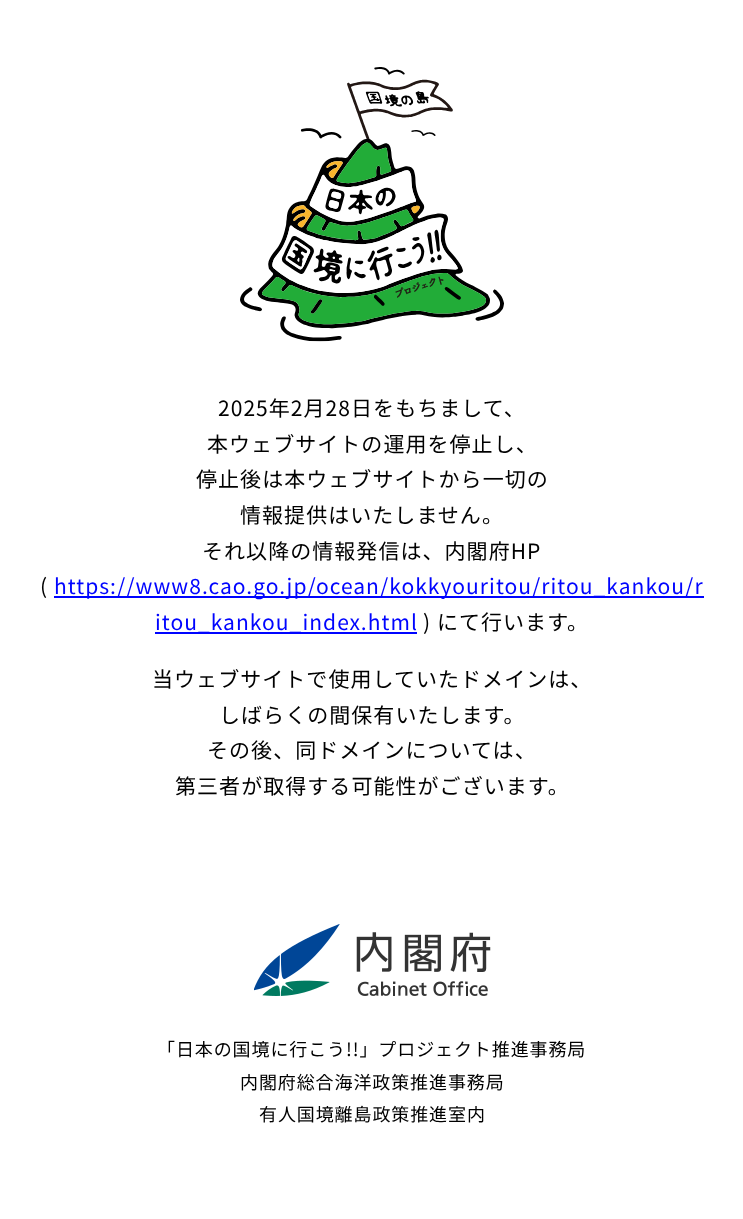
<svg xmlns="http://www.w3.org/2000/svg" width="743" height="1219">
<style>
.a{font:21px Noto Sans JP;letter-spacing:1.05px;fill:#000}
.b{font:21px Noto Sans JP;letter-spacing:1.05px;fill:#0004ff}
.c{font:18px Noto Sans JP;letter-spacing:0.9px;fill:#000}
</style>
<rect width="100%" height="100%" fill="#fff"/>
<image href="1.png" x="240" y="67" width="264" height="275"/>
<path fill="#0004ff" d="M54 596h650v2H54z"/>
<path fill="#0004ff" d="M155 632h262v2H155z"/>
<image href="2.png" x="254" y="924" width="237" height="72"/>
<text class="a" x="218" y="416">2025年2月28日をもちまして、</text>
<text class="a" x="207" y="452">本ウェブサイトの運用を停止し、</text>
<text class="a" x="196" y="487">停止後は本ウェブサイトから一切の</text>
<text class="a" x="240" y="523">情報提供はいたしません。</text>
<text class="a" x="202" y="559">それ以降の情報発信は、内閣府HP</text>
<text class="a" x="40" y="594">(</text>
<text class="b" x="54" y="594">https://www8.cao.go.jp/ocean/kokkyouritou/ritou_kankou/r</text>
<text class="b" x="155" y="630">itou_kankou_index.html</text>
<text class="a" x="423" y="630">) にて行います。</text>
<text class="a" x="152" y="687">当ウェブサイトで使用していたドメインは、</text>
<text class="a" x="219" y="723">しばらくの間保有いたします。</text>
<text class="a" x="207" y="758">その後、同ドメインについては、</text>
<text class="a" x="175" y="794">第三者が取得する可能性がございます。</text>
<text class="c" x="157" y="1056">「日本の国境に行こう!!」プロジェクト推進事務局</text>
<text class="c" x="240" y="1089">内閣府総合海洋政策推進事務局</text>
<text class="c" x="259" y="1121">有人国境離島政策推進室内</text>
</svg>
